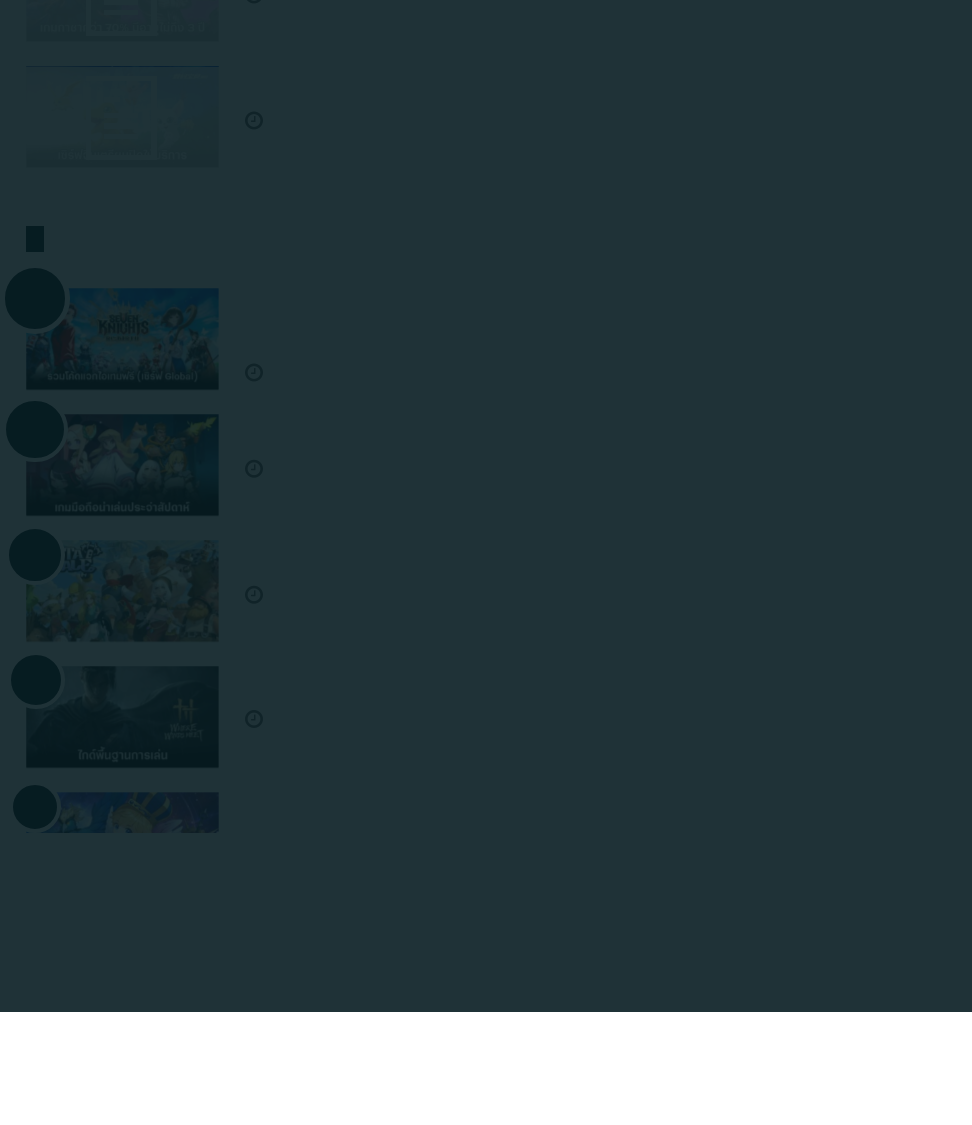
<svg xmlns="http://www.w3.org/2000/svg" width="972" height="1125">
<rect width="100%" height="100%" fill="#fff"/>
<image href="1.png" x="26" y="0" width="193" height="42"/>
<path fill="#fff" d="M104-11h34v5h-34zm0 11h34v5h-34zm0 10h34v5h-34zm0-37h16v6h-16zm53 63h-71v-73h5v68h60v-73h-65v-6h71z"/>
<image href="2.png" x="247" y="0" width="14" height="4"/>
<image href="3.png" x="26" y="66" width="193" height="102"/>
<path fill="#fff" d="M104 113h34v5h-34zm0 10h34v6h-34zm0 11h34v5h-34zm0-37h16v5h-16zm53 63h-71v-73h5v68h60v-74h-65v-5h71z"/>
<image href="4.png" x="245" y="111" width="18" height="19"/>
<path fill="#091e23" d="M26 226h18v26H26z"/>
<image href="5.png" x="26" y="288" width="193" height="103"/>
<rect fill="#091e23" stroke="#fff" stroke-width="5" x="2.5" y="265.5" width="65" height="66" rx="32.5"/>
<image href="4.png" x="245" y="363" width="18" height="19"/>
<image href="6.png" x="26" y="414" width="193" height="103"/>
<rect fill="#091e23" stroke="#fff" stroke-width="4" x="4" y="399" width="62" height="61" rx="30.5"/>
<image href="7.png" x="245" y="459" width="18" height="19"/>
<image href="8.png" x="26" y="540" width="193" height="103"/>
<circle fill="#091e23" stroke="#fff" stroke-width="4" cx="35" cy="555" r="28"/>
<image href="7.png" x="245" y="585" width="18" height="19"/>
<image href="9.png" x="26" y="666" width="193" height="103"/>
<circle fill="#091e23" stroke="#fff" stroke-width="4" cx="36" cy="680" r="27"/>
<image href="10.png" x="245" y="710" width="18" height="18"/>
<image href="11.png" x="26" y="792" width="193" height="41"/>
<circle fill="#091e23" stroke="#fff" stroke-width="4" cx="35" cy="807" r="24"/>
<path fill="#071c21e6" d="M0 0h972v1012H0z"/>
</svg>
